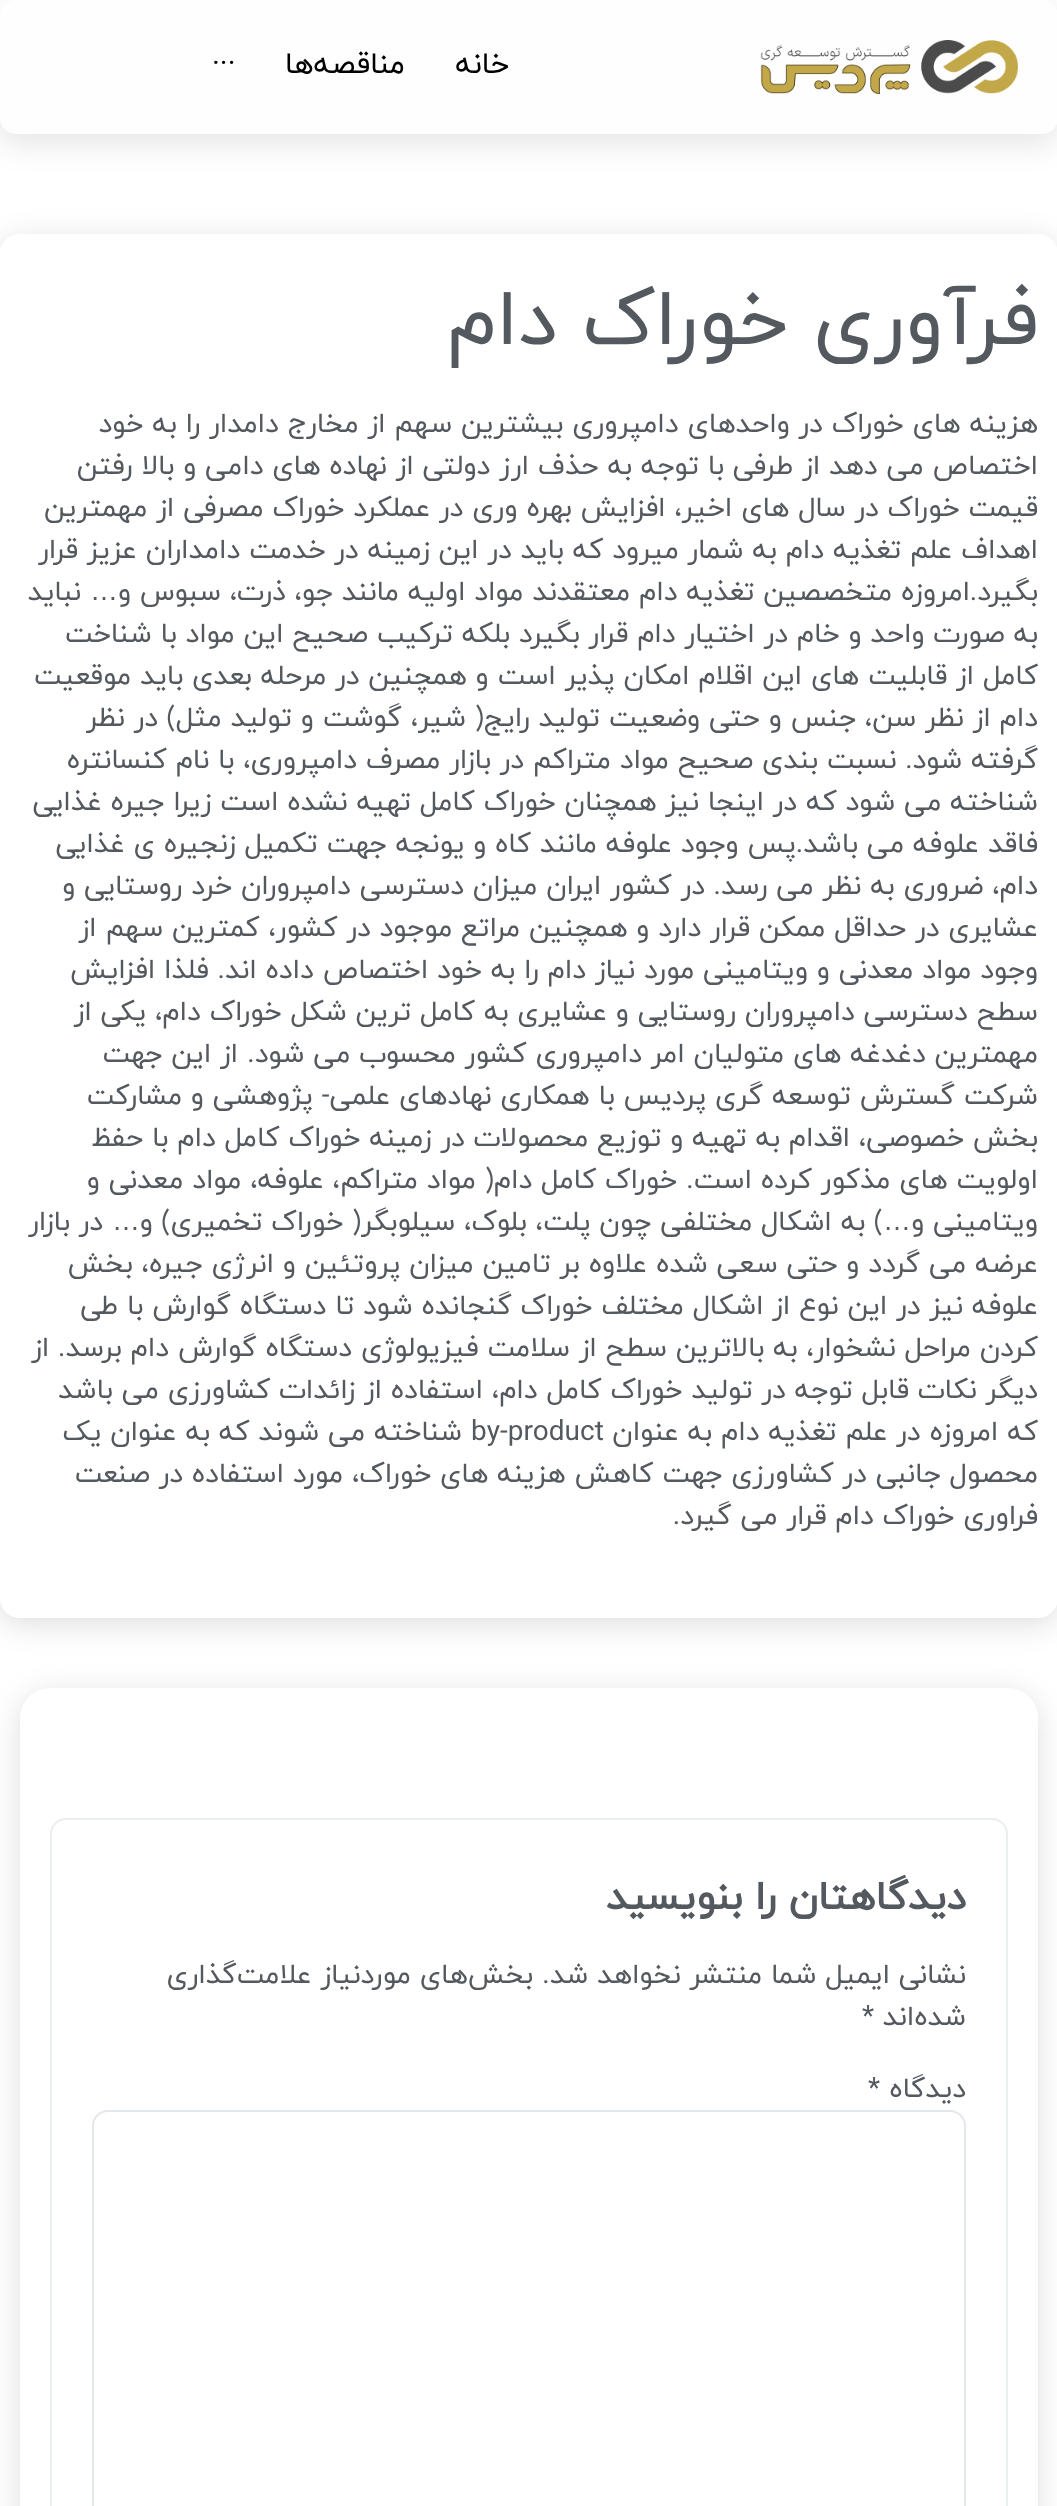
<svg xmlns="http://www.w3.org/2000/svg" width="1057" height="2506">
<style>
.a{font:30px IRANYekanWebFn;direction:rtl;fill:#000}
.b{font:30px IRANYekanWebFn;fill:#000}
.c{font:80px IRANYekanWebFn;direction:rtl;fill:#54595f}
.d{font:28px IRANYekanWebFn;direction:rtl;fill:#54595f}
.e{font:28px Liberation Sans;direction:rtl;fill:#54595f}
.f{font:28px IRANYekanWebFn;fill:#54595f}
.g{font:bold 40px IRANYekanWebFn;direction:rtl;fill:#54595f}
</style>
<defs>
<clipPath id="clip1"><path d="M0 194h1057v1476h-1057zm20 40h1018c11 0 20 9 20 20v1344c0 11-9 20-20 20h-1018c-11 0-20-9-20-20v-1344c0-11 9-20 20-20z" clip-rule="evenodd"/></clipPath>
</defs>
<rect width="100%" height="100%" fill="#fff"/>
<rect fill="#0000001a" filter="blur(15px)" y="10" width="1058" height="134" rx="16"/>
<rect fill="#fffefe" width="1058" height="134" rx="16"/>
<image href="1.png" x="760" y="40" width="258" height="54"/>
<g clip-path="url(#clip1)">
<rect fill="#00000021" filter="blur(15px)" y="240" width="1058" height="1384" rx="20"/>
</g>
<rect fill="#00000021" filter="blur(15px)" x="20" y="1694" width="1018" height="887" rx="30"/>
<rect fill="#fff" x="20" y="1688" width="1018" height="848" rx="30"/>
<rect fill="none" stroke="#ebeeef" stroke-width="2" x="51" y="1819" width="956" height="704" rx="15"/>
<rect fill="none" stroke="#e3e6ec" stroke-width="2" x="93" y="2111" width="872" height="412" rx="15"/>
<text class="a" x="509" y="73">خانه</text>
<text class="a" x="405" y="73">مناقصه‌ها</text>
<text class="b" x="212" y="73">···</text>
<text class="c" x="1038" y="344">فرآوری خوراک دام</text>
<text class="d" x="1038" y="432">هزینه های خوراک در واحد‌های دامپروری بیشترین سهم از مخارج دامدار را به خود</text>
<text class="d" x="1038" y="474">اختصاص می دهد از طرفی با توجه به حذف ارز دولتی از نهاده های دامی و بالا رفتن</text>
<text class="d" x="1038" y="516">قیمت خوراک در سال های اخیر، افزایش بهره وری در عملکرد خوراک مصرفی از مهمترین</text>
<text class="d" x="1038" y="558">اهداف علم تغذیه دام به شمار میرود که باید در این زمینه در خدمت دامداران عزیز قرار</text>
<text class="d" x="1038" y="600">بگیرد.</text>
<text class="d" x="970" y="600">امروزه متخصصین تغذیه دام معتقدند مواد اولیه مانند جو، ذرت، سبوس و</text>
<text class="e" x="118" y="600">…</text>
<text class="d" x="81" y="600">نباید</text>
<text class="d" x="1038" y="642">به صورت واحد و خام در اختیار دام قرار بگیرد بلکه ترکیب صحیح این مواد با شناخت</text>
<text class="d" x="1038" y="684">کامل از قابلیت های این اقلام امکان پذیر است و همچنین در مرحله بعدی باید موقعیت</text>
<text class="d" x="1038" y="726">دام از نظر سن، جنس و حتی وضعیت تولید رایج( شیر، گوشت و تولید مثل) در نظر</text>
<text class="d" x="1038" y="768">گرفته شود. نسبت بندی صحیح مواد متراکم در بازار مصرف دامپروری، با نام کنسانتره</text>
<text class="d" x="1038" y="810">شناخته می شود که در اینجا نیز همچنان خوراک کامل تهیه نشده است زیرا جیره غذایی</text>
<text class="d" x="1038" y="852">فاقد علوفه می باشد.پس وجود علوفه مانند کاه و یونجه جهت تکمیل زنجیره ی غذایی</text>
<text class="d" x="1038" y="894">دام، ضروری به نظر می رسد.</text>
<text class="d" x="705" y="894">در کشور ایران میزان دسترسی دامپروران خرد روستایی و</text>
<text class="d" x="1038" y="936">عشایری در حداقل ممکن قرار دارد و همچنین مراتع موجود در کشور، کمترین سهم از</text>
<text class="d" x="1038" y="978">وجود مواد معدنی و ویتامینی مورد نیاز دام را به خود اختصاص داده اند. فلذا افزایش</text>
<text class="d" x="1038" y="1020">سطح دسترسی دامپروران روستایی و عشایری به کامل ترین شکل خوراک دام، یکی از</text>
<text class="d" x="1038" y="1062">مهمترین دغدغه های متولیان امر دامپروری کشور محسوب می شود.</text>
<text class="d" x="238" y="1062">از این جهت</text>
<text class="d" x="1038" y="1104">شرکت گسترش توسعه گری پردیس با همکاری نهادهای علمی- پژوهشی و مشارکت</text>
<text class="d" x="1038" y="1146">بخش خصوصی، اقدام به تهیه و توزیع محصولات در زمینه خوراک کامل دام با حفظ</text>
<text class="d" x="1038" y="1188">اولویت های مذکور کرده است.</text>
<text class="d" x="677" y="1188">خوراک کامل دام( مواد متراکم، علوفه، مواد معدنی و</text>
<text class="d" x="1038" y="1230">ویتامینی و</text>
<text class="e" x="911" y="1230">…</text>
<text class="d" x="883" y="1230">) به اشکال مختلفی چون پلت، بلوک، سیلوبگر( خوراک تخمیری) و</text>
<text class="e" x="140" y="1230">…</text>
<text class="d" x="103" y="1230">در بازار</text>
<text class="d" x="1038" y="1272">عرضه می گردد و حتی سعی شده علاوه بر تامین میزان پروتئین و انرژی جیره، بخش</text>
<text class="d" x="1038" y="1314">علوفه نیز در این نوع از اشکال مختلف خوراک گنجانده شود تا دستگاه گوارش با طی</text>
<text class="d" x="1038" y="1356">کردن مراحل نشخوار، به بالاترین سطح از سلامت فیزیولوژی دستگاه گوارش دام برسد. از</text>
<text class="d" x="1038" y="1398">دیگر نکات قابل توجه در تولید خوراک کامل دام، استفاده از زائدات کشاورزی می باشد</text>
<text class="d" x="1038" y="1440">که امروزه در علم تغذیه دام به عنوان</text>
<text class="f" x="471" y="1440">by-product</text>
<text class="d" x="462" y="1440">شناخته می شوند که به عنوان یک</text>
<text class="d" x="1038" y="1482">محصول جانبی در کشاورزی جهت کاهش هزینه های خوراک، مورد استفاده در صنعت</text>
<text class="d" x="1038" y="1524">فراوری خوراک دام قرار می گیرد.</text>
<text class="g" x="966" y="1909">دیدگاهتان را بنویسید</text>
<text class="d" x="966" y="1983">نشانی ایمیل شما منتشر نخواهد شد.</text>
<text class="d" x="533" y="1983">بخش‌های موردنیاز علامت‌گذاری</text>
<text class="d" x="966" y="2025">شده‌اند</text>
<text class="f" x="862" y="2025">*</text>
<text class="d" x="966" y="2097">دیدگاه</text>
<text class="f" x="868" y="2097">*</text>
</svg>
